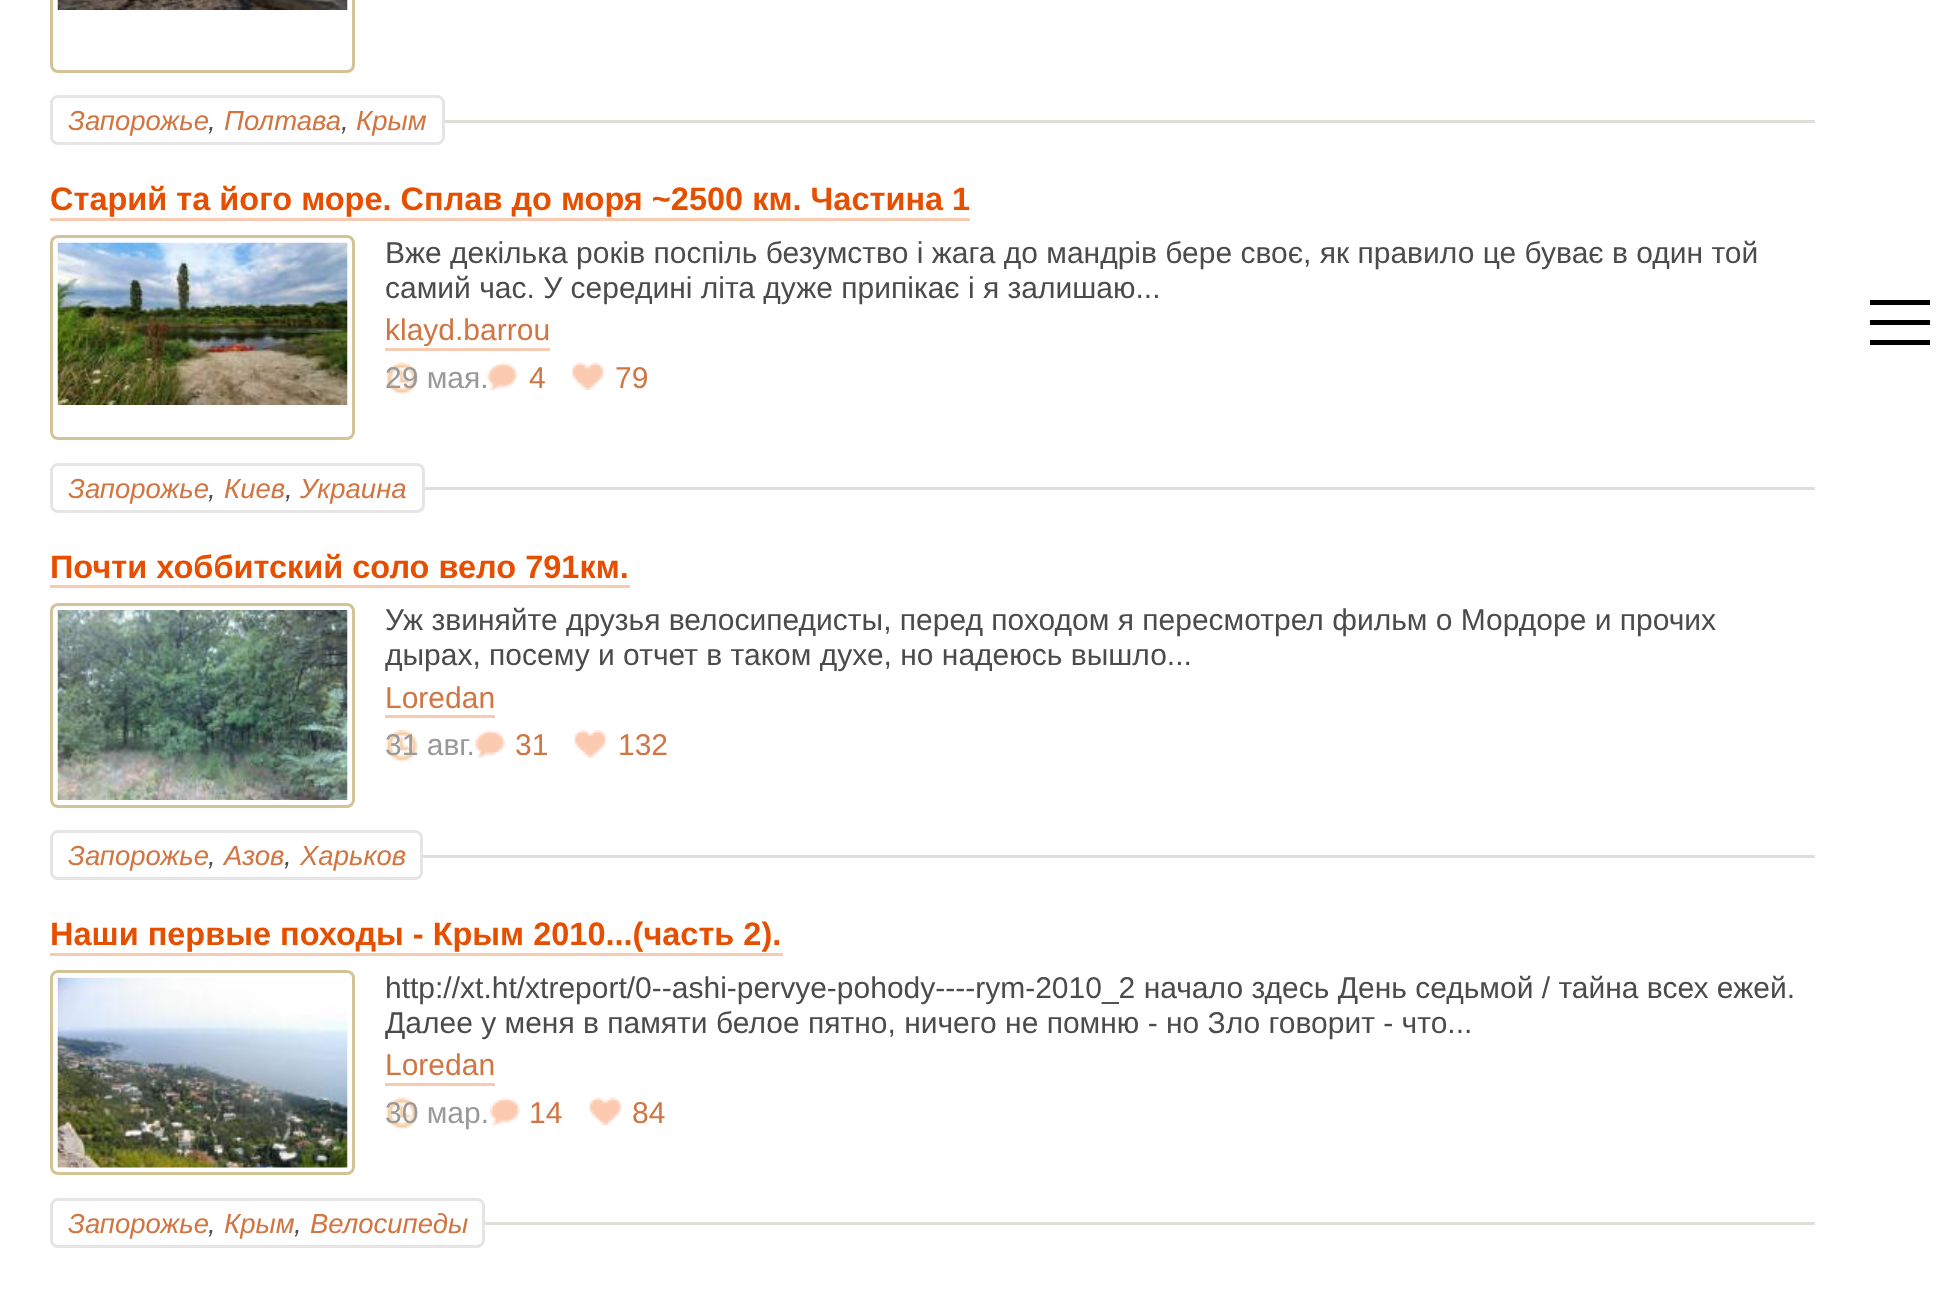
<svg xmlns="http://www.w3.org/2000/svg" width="1953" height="1292">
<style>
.a{font:italic 27.5px Liberation Sans;fill:#d17542}
.b{font:italic 27.5px Liberation Sans;fill:#4b4b4b}
.c{font:bold 32.5px Liberation Sans;fill:#e64f00}
.d{font:30px Liberation Sans;fill:#4b4b4b}
.e{font:30px Liberation Sans;fill:#d17542}
.f{font:30px Liberation Sans;fill:#999}
</style>
<rect width="100%" height="100%" fill="#fff"/>
<rect fill="none" stroke="#d4c396" stroke-width="3" x="51.5" y="-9.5" width="302" height="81" rx="6.5"/>
<image href="1.png" x="57" y="0" width="291" height="10"/>
<path fill="#dedfd8" d="M445 120h1370v3H445z"/>
<rect fill="none" stroke="#e5e5e5" stroke-width="3" x="51.5" y="96.5" width="392" height="47" rx="6.5"/>
<path fill="#f7cab2" d="M50 218h920v3H50z"/>
<rect fill="none" stroke="#d4c396" stroke-width="3" x="51.5" y="236.5" width="302" height="202" rx="6.5"/>
<image href="2.png" x="57" y="242" width="291" height="163"/>
<path fill="#f7cab2" d="M385 348h165v3H385z"/>
<image href="3.png" x="386" y="362" width="32" height="33"/>
<image href="4.png" x="487" y="362" width="31" height="28"/>
<image href="5.png" x="571" y="362" width="34" height="28"/>
<path fill="#dedfd8" d="M425 487h1390v3H425z"/>
<rect fill="none" stroke="#e5e5e5" stroke-width="3" x="51.5" y="464.5" width="372" height="47" rx="6.5"/>
<path fill="#f7cab2" d="M50 585h580v3H50z"/>
<rect fill="none" stroke="#d4c396" stroke-width="3" x="51.5" y="604.5" width="302" height="202" rx="6.5"/>
<image href="6.png" x="57" y="610" width="291" height="190"/>
<path fill="#f7cab2" d="M385 715h110v3H385z"/>
<image href="7.png" x="386" y="730" width="32" height="33"/>
<image href="8.png" x="475" y="730" width="30" height="28"/>
<image href="9.png" x="574" y="730" width="34" height="28"/>
<path fill="#dedfd8" d="M423 855h1392v3H423z"/>
<rect fill="none" stroke="#e5e5e5" stroke-width="3" x="51.5" y="831.5" width="370" height="47" rx="6.5"/>
<path fill="#f7cab2" d="M50 953h733v3H50z"/>
<rect fill="none" stroke="#d4c396" stroke-width="3" x="51.5" y="971.5" width="302" height="202" rx="6.5"/>
<image href="10.png" x="57" y="977" width="291" height="191"/>
<path fill="#f7cab2" d="M385 1083h110v3H385z"/>
<image href="3.png" x="386" y="1097" width="32" height="33"/>
<image href="11.png" x="490" y="1097" width="30" height="28"/>
<image href="12.png" x="589" y="1097" width="34" height="28"/>
<path fill="#dedfd8" d="M485 1222h1330v3H485z"/>
<rect fill="none" stroke="#e5e5e5" stroke-width="3" x="51.5" y="1199.5" width="432" height="47" rx="6.5"/>
<path fill="#000" fill-rule="evenodd" d="M1870 300v5h60v-5zm0 25v-5h60v5zm0 15v5h60v-5z"/>
<text class="a" x="68" y="130">Запорожье</text>
<text class="b" x="208" y="130">,</text>
<text class="a" x="224" y="130">Полтава</text>
<text class="b" x="341" y="130">,</text>
<text class="a" x="356" y="130">Крым</text>
<text class="c" x="50" y="210">Старий та його море. Сплав до моря ~2500 км. Частина 1</text>
<text class="d" x="385" y="263">Вже декілька років поспіль безумство і жага до мандрів бере своє, як правило це буває в один той</text>
<text class="d" x="385" y="298">самий час. У середині літа дуже припікає і я залишаю...</text>
<text class="e" x="385" y="340">klayd.barrou</text>
<text class="f" x="385" y="388">29 мая.</text>
<text class="e" x="529" y="388">4</text>
<text class="e" x="615" y="388">79</text>
<text class="a" x="68" y="498">Запорожье</text>
<text class="b" x="208" y="498">,</text>
<text class="a" x="224" y="498">Киев</text>
<text class="b" x="285" y="498">,</text>
<text class="a" x="300" y="498">Украина</text>
<text class="c" x="50" y="578">Почти хоббитский соло вело 791км.</text>
<text class="d" x="385" y="630">Уж звиняйте друзья велосипедисты, перед походом я пересмотрел фильм о Мордоре и прочих</text>
<text class="d" x="385" y="665">дырах, посему и отчет в таком духе, но надеюсь вышло...</text>
<text class="e" x="385" y="708">Loredan</text>
<text class="f" x="385" y="755">31 авг.</text>
<text class="e" x="515" y="755">31</text>
<text class="e" x="618" y="755">132</text>
<text class="a" x="68" y="865">Запорожье</text>
<text class="b" x="208" y="865">,</text>
<text class="a" x="224" y="865">Азов</text>
<text class="b" x="284" y="865">,</text>
<text class="a" x="300" y="865">Харьков</text>
<text class="c" x="50" y="945">Наши первые походы - Крым 2010...(часть 2).</text>
<text class="d" x="385" y="998">http://xt.ht/xtreport/0--ashi-pervye-pohody----rym-2010_2 начало здесь День седьмой / тайна всех ежей.</text>
<text class="d" x="385" y="1033">Далее у меня в памяти белое пятно, ничего не помню - но Зло говорит - что...</text>
<text class="e" x="385" y="1075">Loredan</text>
<text class="f" x="385" y="1123">30 мар.</text>
<text class="e" x="529" y="1123">14</text>
<text class="e" x="632" y="1123">84</text>
<text class="a" x="68" y="1233">Запорожье</text>
<text class="b" x="208" y="1233">,</text>
<text class="a" x="224" y="1233">Крым</text>
<text class="b" x="294" y="1233">,</text>
<text class="a" x="310" y="1233">Велосипеды</text>
</svg>
